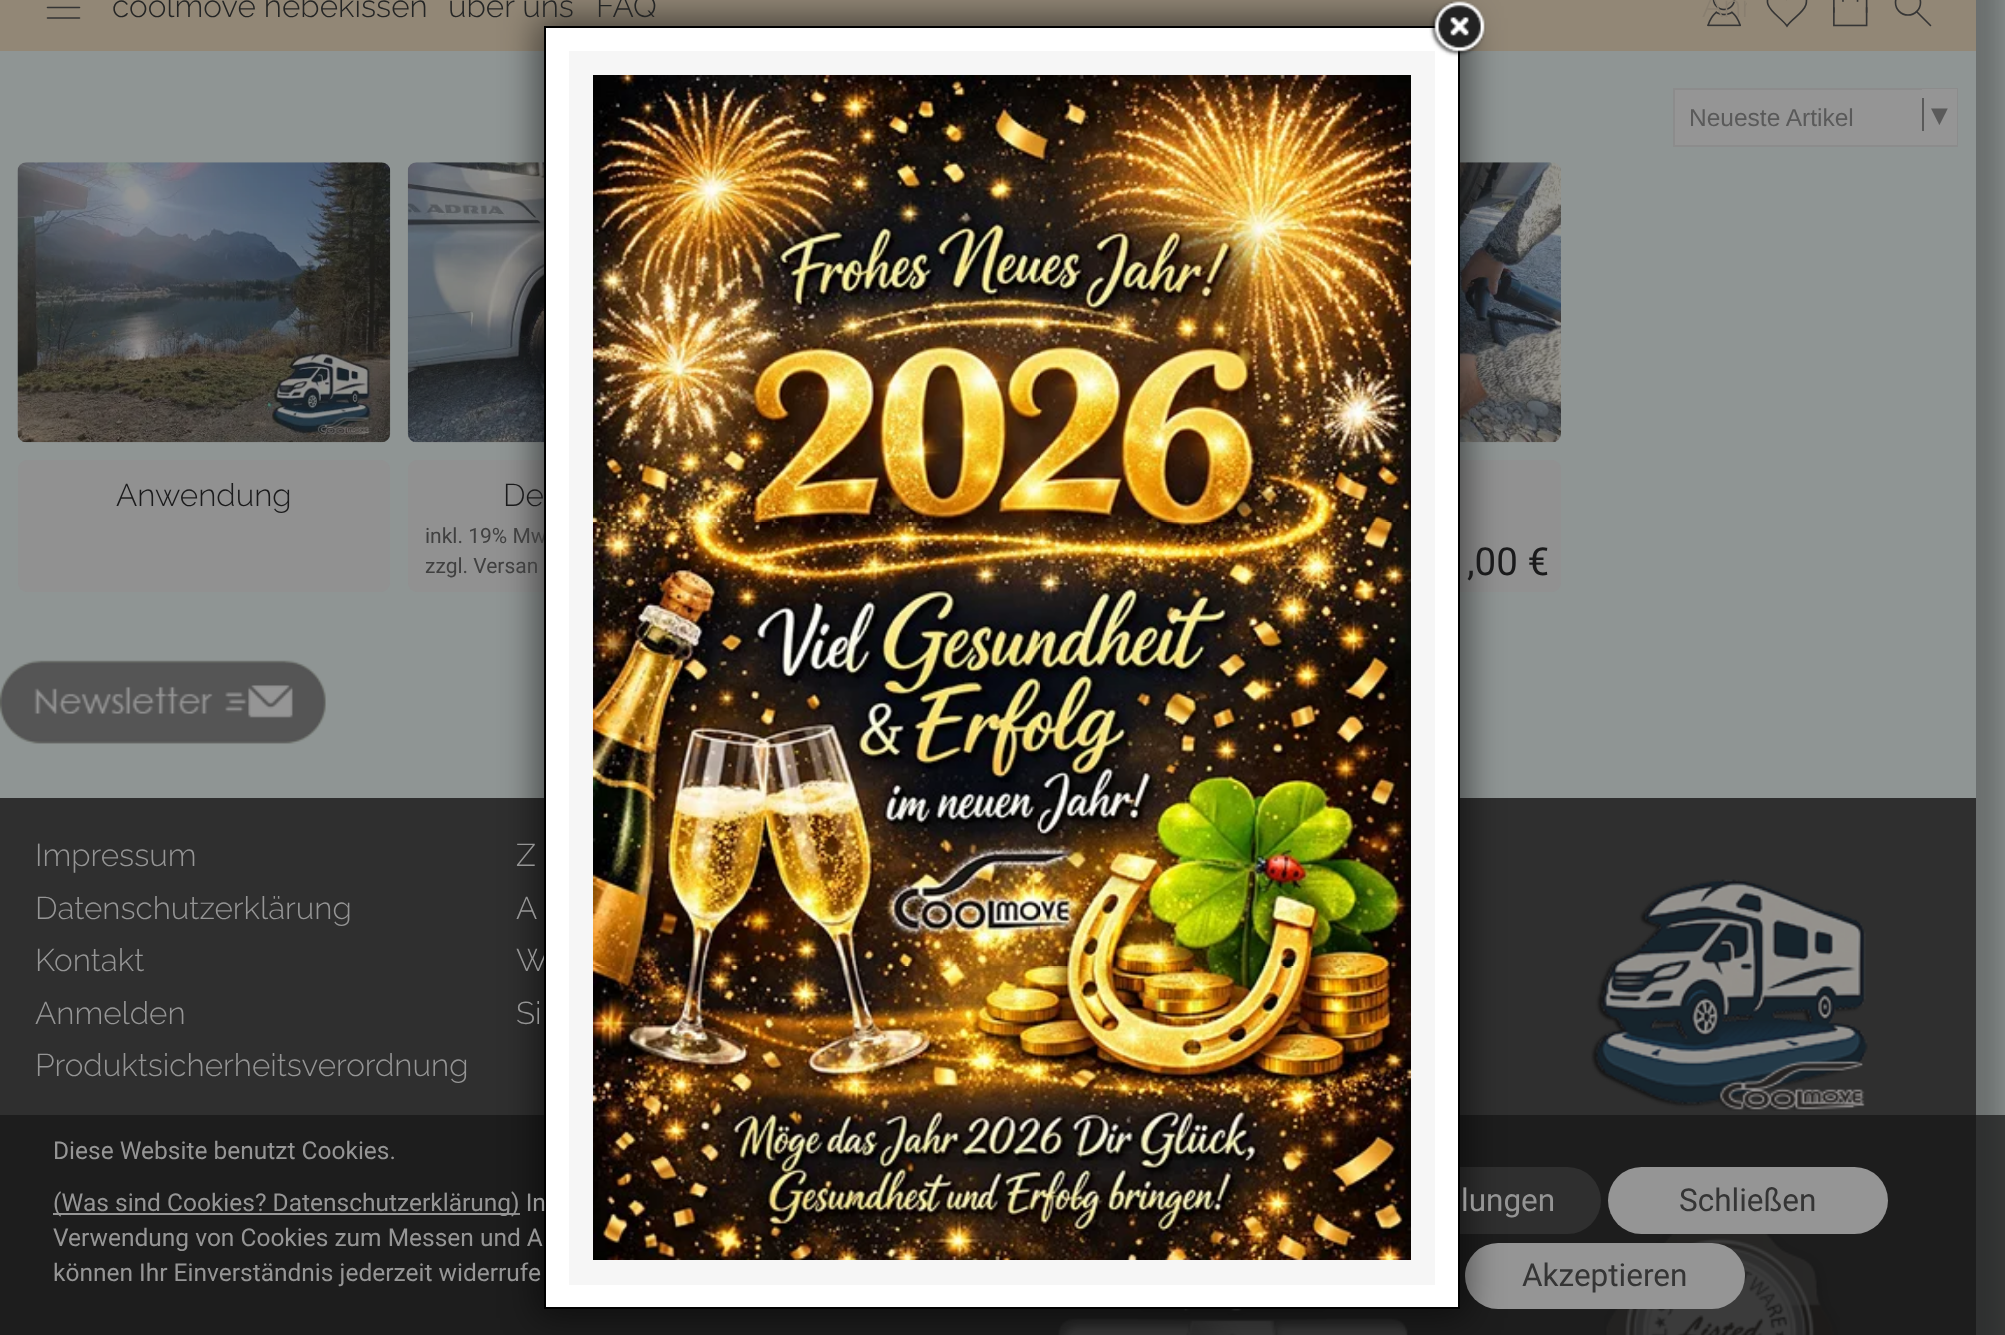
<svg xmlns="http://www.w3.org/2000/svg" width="2005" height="1335">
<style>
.a{font:300 31.5px Raleway;fill:#242525}
.b{font:300 31.5px Raleway;fill:#887e6f}
.c{font:24.5px Liberation Sans;fill:#5a5a5a}
.d{font:28px DejaVu Sans Mono;fill:#5a5a5a}
.e{font:300 31.5px Raleway;fill:#1a1a1b}
.f{font:21px Roboto;fill:#404040}
.g{font:38.5px Roboto;fill:#1a1a1b}
.h{font:300 31.5px Raleway;fill:#959595}
.i{font:24.5px Roboto;fill:#959595}
.j{font:31.5px Roboto;fill:#959595}
.k{font:31.5px Roboto;fill:#353535}
</style>
<defs>
<clipPath id="clip1"><path d="M1701 0h46v30H1701z"/></clipPath>
</defs>
<rect width="100%" height="100%" fill="#8f9594"/>
<path fill="#1616164d" filter="blur(13px)" d="M-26 -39h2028v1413H-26z"/>
<path fill="#8f9594" d="M0 51h1976v747H0z"/>
<path fill="#928776" d="M0 0h1976v51H0z"/>
<path fill="none" stroke="#353535" stroke-width="1.6" stroke-linecap="round" d="M47.5 18h32m-32-10.5h32"/>
<image href="1.png" x="1707" y="0" width="34" height="27"/>
<path fill="none" stroke="#353535" stroke-width="1.6" d="M1787 26c-5-7.5-16-13-19-21.5c-4-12 15-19 19-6.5c3.5-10 17.5-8 19.5 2c0 1.5 0 3-.5 4.5c-2.5 8.5-14 14-19 21.5z"/>
<image href="2.png" x="1833" y="0" width="35" height="27"/>
<circle fill="none" stroke="#353535" stroke-width="1.6" cx="1908" cy="2.5" r="12.5"/>
<path fill="none" stroke="#353535" stroke-width="1.6" stroke-linecap="round" d="M1916.5 11.5l14 14"/>
<path fill="#959595" d="M1675 90h247v55H1675z"/>
<path fill="none" stroke="#8c8c8c" stroke-width="2" d="M1674 89h283v57H1674z"/>
<path fill="#959595" d="M1922 89h35v56H1922z"/>
<path fill="#5a5a5a" d="M1922 98h2v33H1922z"/>
<image href="3.png" x="17" y="162" width="374" height="281"/>
<rect fill="#919191" x="18" y="460" width="372" height="132" rx="9"/>
<image href="4.png" x="407" y="162" width="137" height="281"/>
<rect fill="#919191" x="408" y="460" width="373" height="132" rx="9"/>
<image href="5.png" x="1460" y="162" width="101" height="281"/>
<rect fill="#919191" x="1188" y="460" width="373" height="132" rx="9"/>
<image href="6.png" x="0" y="660" width="326" height="84"/>
<path fill="#2f2f2f" d="M0 798h1976v537H0z"/>
<image href="7.png" x="1591" y="879" width="277" height="232"/>
<image href="8.png" x="1058" y="1309" width="350" height="26"/>
<image href="9.png" x="1604" y="1234" width="236" height="101"/>
<path fill="#161616b3" d="M0 1115h2005v220H0z"/>
<path fill="#959595" d="M53 1213h467v2H53z"/>
<rect fill="#2f2f2f" x="1321" y="1167" width="280" height="67" rx="33.5"/>
<rect fill="#959595" x="1465" y="1243" width="280" height="66" rx="33"/>
<path fill="#00000080" filter="blur(17.5px)" d="M536 18h932v1300H536z"/>
<rect fill="#959595" x="1608" y="1167" width="280" height="67" rx="33.5"/>
<text class="a" x="112" y="17">coolmove hebekissen</text>
<text class="a" x="448" y="17">über uns</text>
<text class="a" x="596" y="17">FAQ</text>
<g clip-path="url(#clip1)">
<text class="b" x="1702" y="17">Anm</text>
</g>
<text class="c" x="1689" y="126">Neueste Artikel</text>
<text class="d" x="1931" y="124">▼</text>
<text class="e" x="116" y="506">Anwendung</text>
<text class="e" x="503" y="506">De</text>
<text class="f" x="425" y="543">inkl. 19% Mw</text>
<text class="f" x="425" y="573">zzgl. Versan</text>
<text class="g" x="1467" y="575">,00 €</text>
<text class="h" x="35" y="866">Impressum</text>
<text class="h" x="35" y="919">Datenschutzerklärung</text>
<text class="h" x="35" y="971">Kontakt</text>
<text class="h" x="35" y="1024">Anmelden</text>
<text class="h" x="35" y="1076">Produktsicherheitsverordnung</text>
<text class="h" x="516" y="866">Z</text>
<text class="h" x="516" y="919">A</text>
<text class="h" x="516" y="971">W</text>
<text class="h" x="516" y="1024">Si</text>
<path fill="#fff" stroke="#000" stroke-width="2" d="M545 27h914v1281H545z"/>
<path fill="#f6f6f6" d="M569 51h866v1234H569z"/>
<image href="10.png" x="1429" y="0" width="57" height="57"/>
<image href="11.png" x="593" y="75" width="818" height="1185"/>
<text class="i" x="53" y="1159">Diese Website benutzt Cookies.</text>
<text class="i" x="53" y="1211">(Was sind Cookies? Datenschutzerklärung) In</text>
<text class="i" x="53" y="1246">Verwendung von Cookies zum Messen und A</text>
<text class="i" x="53" y="1281">können Ihr Einverständnis jederzeit widerrufe</text>
<text class="j" x="1461" y="1211">lungen</text>
<text class="k" x="1679" y="1211">Schließen</text>
<text class="k" x="1522" y="1286">Akzeptieren</text>
</svg>
